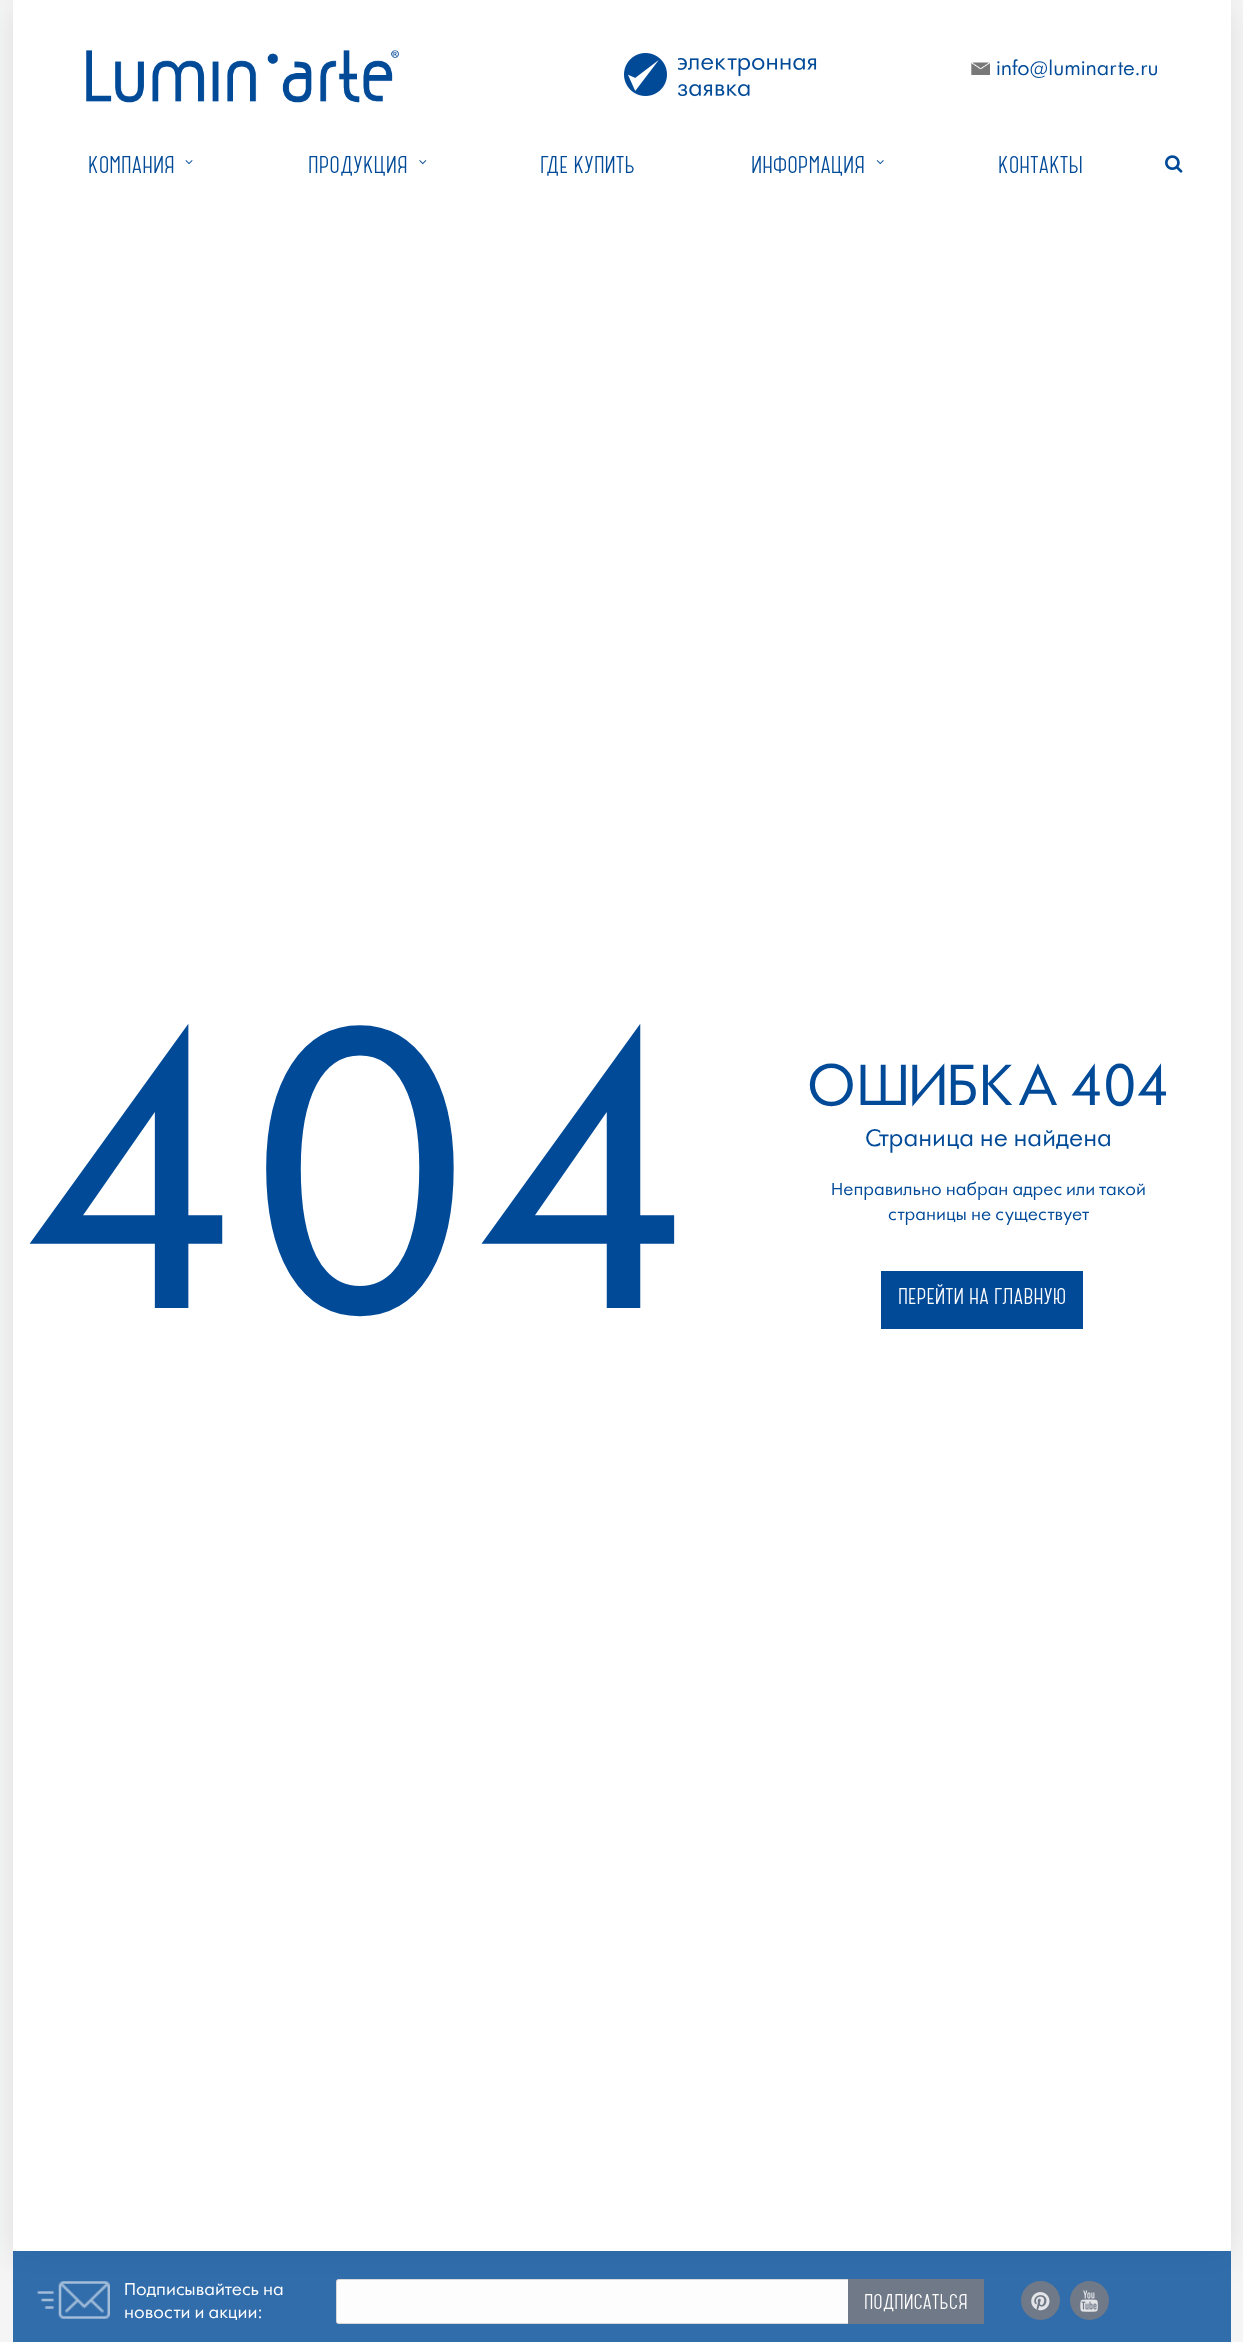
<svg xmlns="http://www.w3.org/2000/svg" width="1243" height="2342">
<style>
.a{font:18.75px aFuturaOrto;fill:#004a98}
.b{font:500 21.25px 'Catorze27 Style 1';fill:#004a98}
.c{font:375px aFuturaOrto;fill:#004a98}
.d{font:55px aFuturaOrto;fill:#004a98}
.e{font:22.5px aFuturaOrto;fill:#004a98}
.f{font:16.25px aFuturaOrto;fill:#004a98}
.g{font:500 20px 'Catorze27 Style 1';fill:#fff}
.h{font:16.25px aFuturaOrto;fill:#fff}
.i{font:500 18.75px 'Catorze27 Style 1';fill:#fff}
</style>
<rect width="100%" height="100%" fill="#f5f5f5"/>
<path fill="#1219261a" filter="blur(15.5px)" d="M13 6h1218v2252H13z"/>
<path fill="#fff" d="M13 0h1218v2251H13z"/>
<image href="1.png" x="86" y="50" width="313" height="53"/>
<image href="2.png" x="624" y="53" width="193" height="44"/>
<image href="3.png" x="971" y="62" width="19" height="13"/>
<image href="4.png" x="185" y="160" width="8" height="5"/>
<image href="5.png" x="419" y="160" width="8" height="5"/>
<image href="6.png" x="876" y="160" width="8" height="5"/>
<image href="7.png" x="1165" y="155" width="18" height="18"/>
<path fill="#004a98" d="M881 1271h202v58H881z"/>
<path fill="#004a98cc" d="M13 2251h1218v91H13z"/>
<image href="8.png" x="37" y="2281" width="73" height="38"/>
<rect fill="#fdfdfd" stroke="#d8d8d8" x="336.5" y="2279.5" width="647" height="44" rx="2"/>
<path fill="#707987" d="M848 2279h136v45H848z"/>
<circle fill="#707987" cx="1040.5" cy="2300.5" r="19.5"/>
<image href="9.png" x="1031" y="2292" width="19" height="19"/>
<circle fill="#707987" cx="1089.5" cy="2300.5" r="19.5"/>
<image href="10.png" x="1080" y="2290" width="18" height="22"/>
<text class="a" x="996" y="75">info@luminarte.ru</text>
<text class="b" x="88" y="173">КОМПАНИЯ</text>
<text class="b" x="308" y="173">ПРОДУКЦИЯ</text>
<text class="b" x="540" y="173">ГДЕ КУПИТЬ</text>
<text class="b" x="751" y="173">ИНФОРМАЦИЯ</text>
<text class="b" x="998" y="173">КОНТАКТЫ</text>
<text class="c" x="21" y="1308">404</text>
<text class="d" x="807" y="1105">ОШИБКА 404</text>
<text class="e" x="865" y="1146">Страница не найдена</text>
<text class="f" x="831" y="1195">Неправильно набран адрес или такой</text>
<text class="f" x="888" y="1220">страницы не существует</text>
<text class="g" x="898" y="1304">ПЕРЕЙТИ НА ГЛАВНУЮ</text>
<text class="h" x="124" y="2295">Подписывайтесь на</text>
<text class="h" x="124" y="2318">новости и акции:</text>
<text class="i" x="864" y="2309">ПОДПИСАТЬСЯ</text>
</svg>
